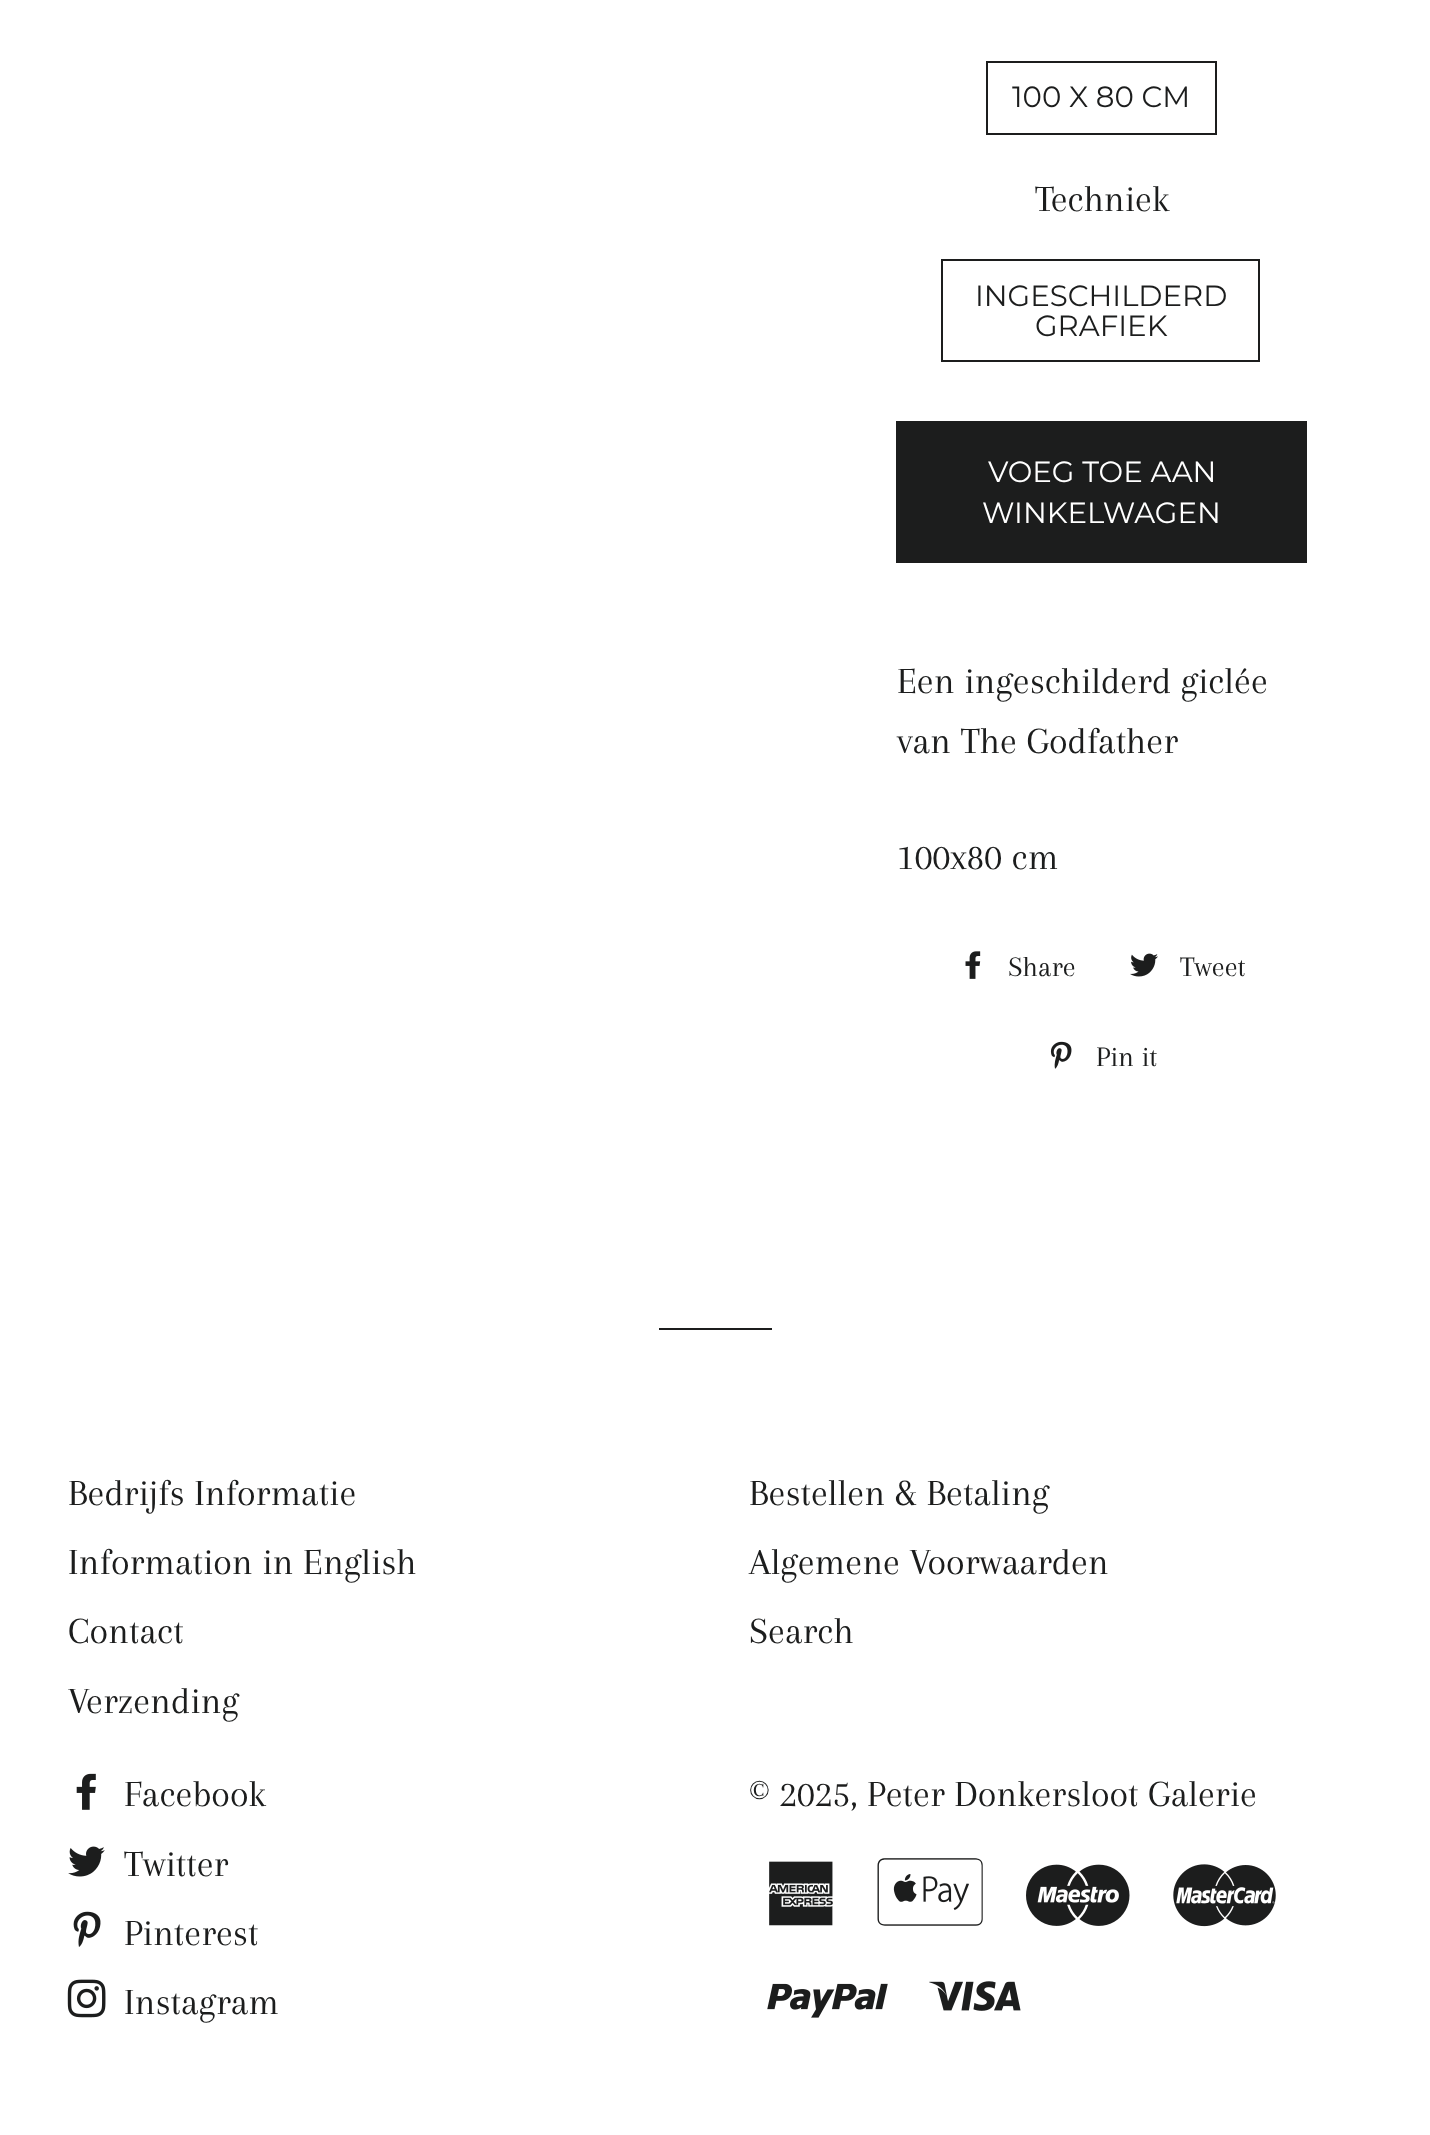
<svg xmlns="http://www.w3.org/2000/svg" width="1430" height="2135">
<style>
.a{font:100 29.25px Montserrat;fill:#1c1d1d}
.b{font:38.25px Arapey;fill:#1c1d1d}
.c{font:100 29.25px Montserrat;fill:#fff}
.d{font:29.25px Arapey;fill:#1c1d1d}
</style>
<rect width="100%" height="100%" fill="#fff"/>
<path fill="none" stroke="#1c1d1d" stroke-width="2" d="M987 62h229v72H987z"/>
<path fill="none" stroke="#1c1d1d" stroke-width="2" d="M942 260h317v101H942z"/>
<path fill="#1c1d1d" d="M896 421h411v142H896z"/>
<image href="1.png" x="965" y="951" width="16" height="28"/>
<image href="2.png" x="1130" y="953" width="28" height="24"/>
<image href="3.png" x="1050" y="1041" width="22" height="28"/>
<path fill="#1c1d1d" d="M659 1328h113v2H659z"/>
<image href="4.png" x="76" y="1773" width="20" height="37"/>
<image href="5.png" x="68" y="1846" width="37" height="31"/>
<image href="6.png" x="73" y="1911" width="28" height="36"/>
<image href="7.png" x="67" y="1979" width="39" height="39"/>
<image href="8.png" x="769" y="1861" width="64" height="65"/>
<image href="9.png" x="877" y="1858" width="106" height="68"/>
<image href="10.png" x="1026" y="1864" width="104" height="62"/>
<image href="11.png" x="1173" y="1864" width="103" height="63"/>
<image href="12.png" x="767" y="1983" width="121" height="35"/>
<image href="13.png" x="929" y="1981" width="92" height="30"/>
<text class="a" x="1012" y="107">100 X 80 CM</text>
<text class="b" x="1035" y="211">Techniek</text>
<text class="a" x="975" y="306">INGESCHILDERD</text>
<text class="a" x="1035" y="336">GRAFIEK</text>
<text class="c" x="988" y="482">VOEG TOE AAN</text>
<text class="c" x="982" y="523">WINKELWAGEN</text>
<text class="b" x="897" y="693">Een ingeschilderd giclée</text>
<text class="b" x="897" y="753">van The Godfather</text>
<text class="b" x="897" y="869">100x80 cm</text>
<text class="d" x="1008" y="976">Share</text>
<text class="d" x="1180" y="976">Tweet</text>
<text class="d" x="1096" y="1066">Pin it</text>
<text class="b" x="68" y="1505">Bedrijfs Informatie</text>
<text class="b" x="68" y="1574">Information in English</text>
<text class="b" x="68" y="1643">Contact</text>
<text class="b" x="68" y="1713">Verzending</text>
<text class="b" x="749" y="1505">Bestellen &amp; Betaling</text>
<text class="b" x="749" y="1574">Algemene Voorwaarden</text>
<text class="b" x="749" y="1643">Search</text>
<text class="b" x="124" y="1806">Facebook</text>
<text class="b" x="124" y="1876">Twitter</text>
<text class="b" x="124" y="1945">Pinterest</text>
<text class="b" x="124" y="2014">Instagram</text>
<text class="b" x="749" y="1806">© 2025, Peter Donkersloot Galerie</text>
</svg>
